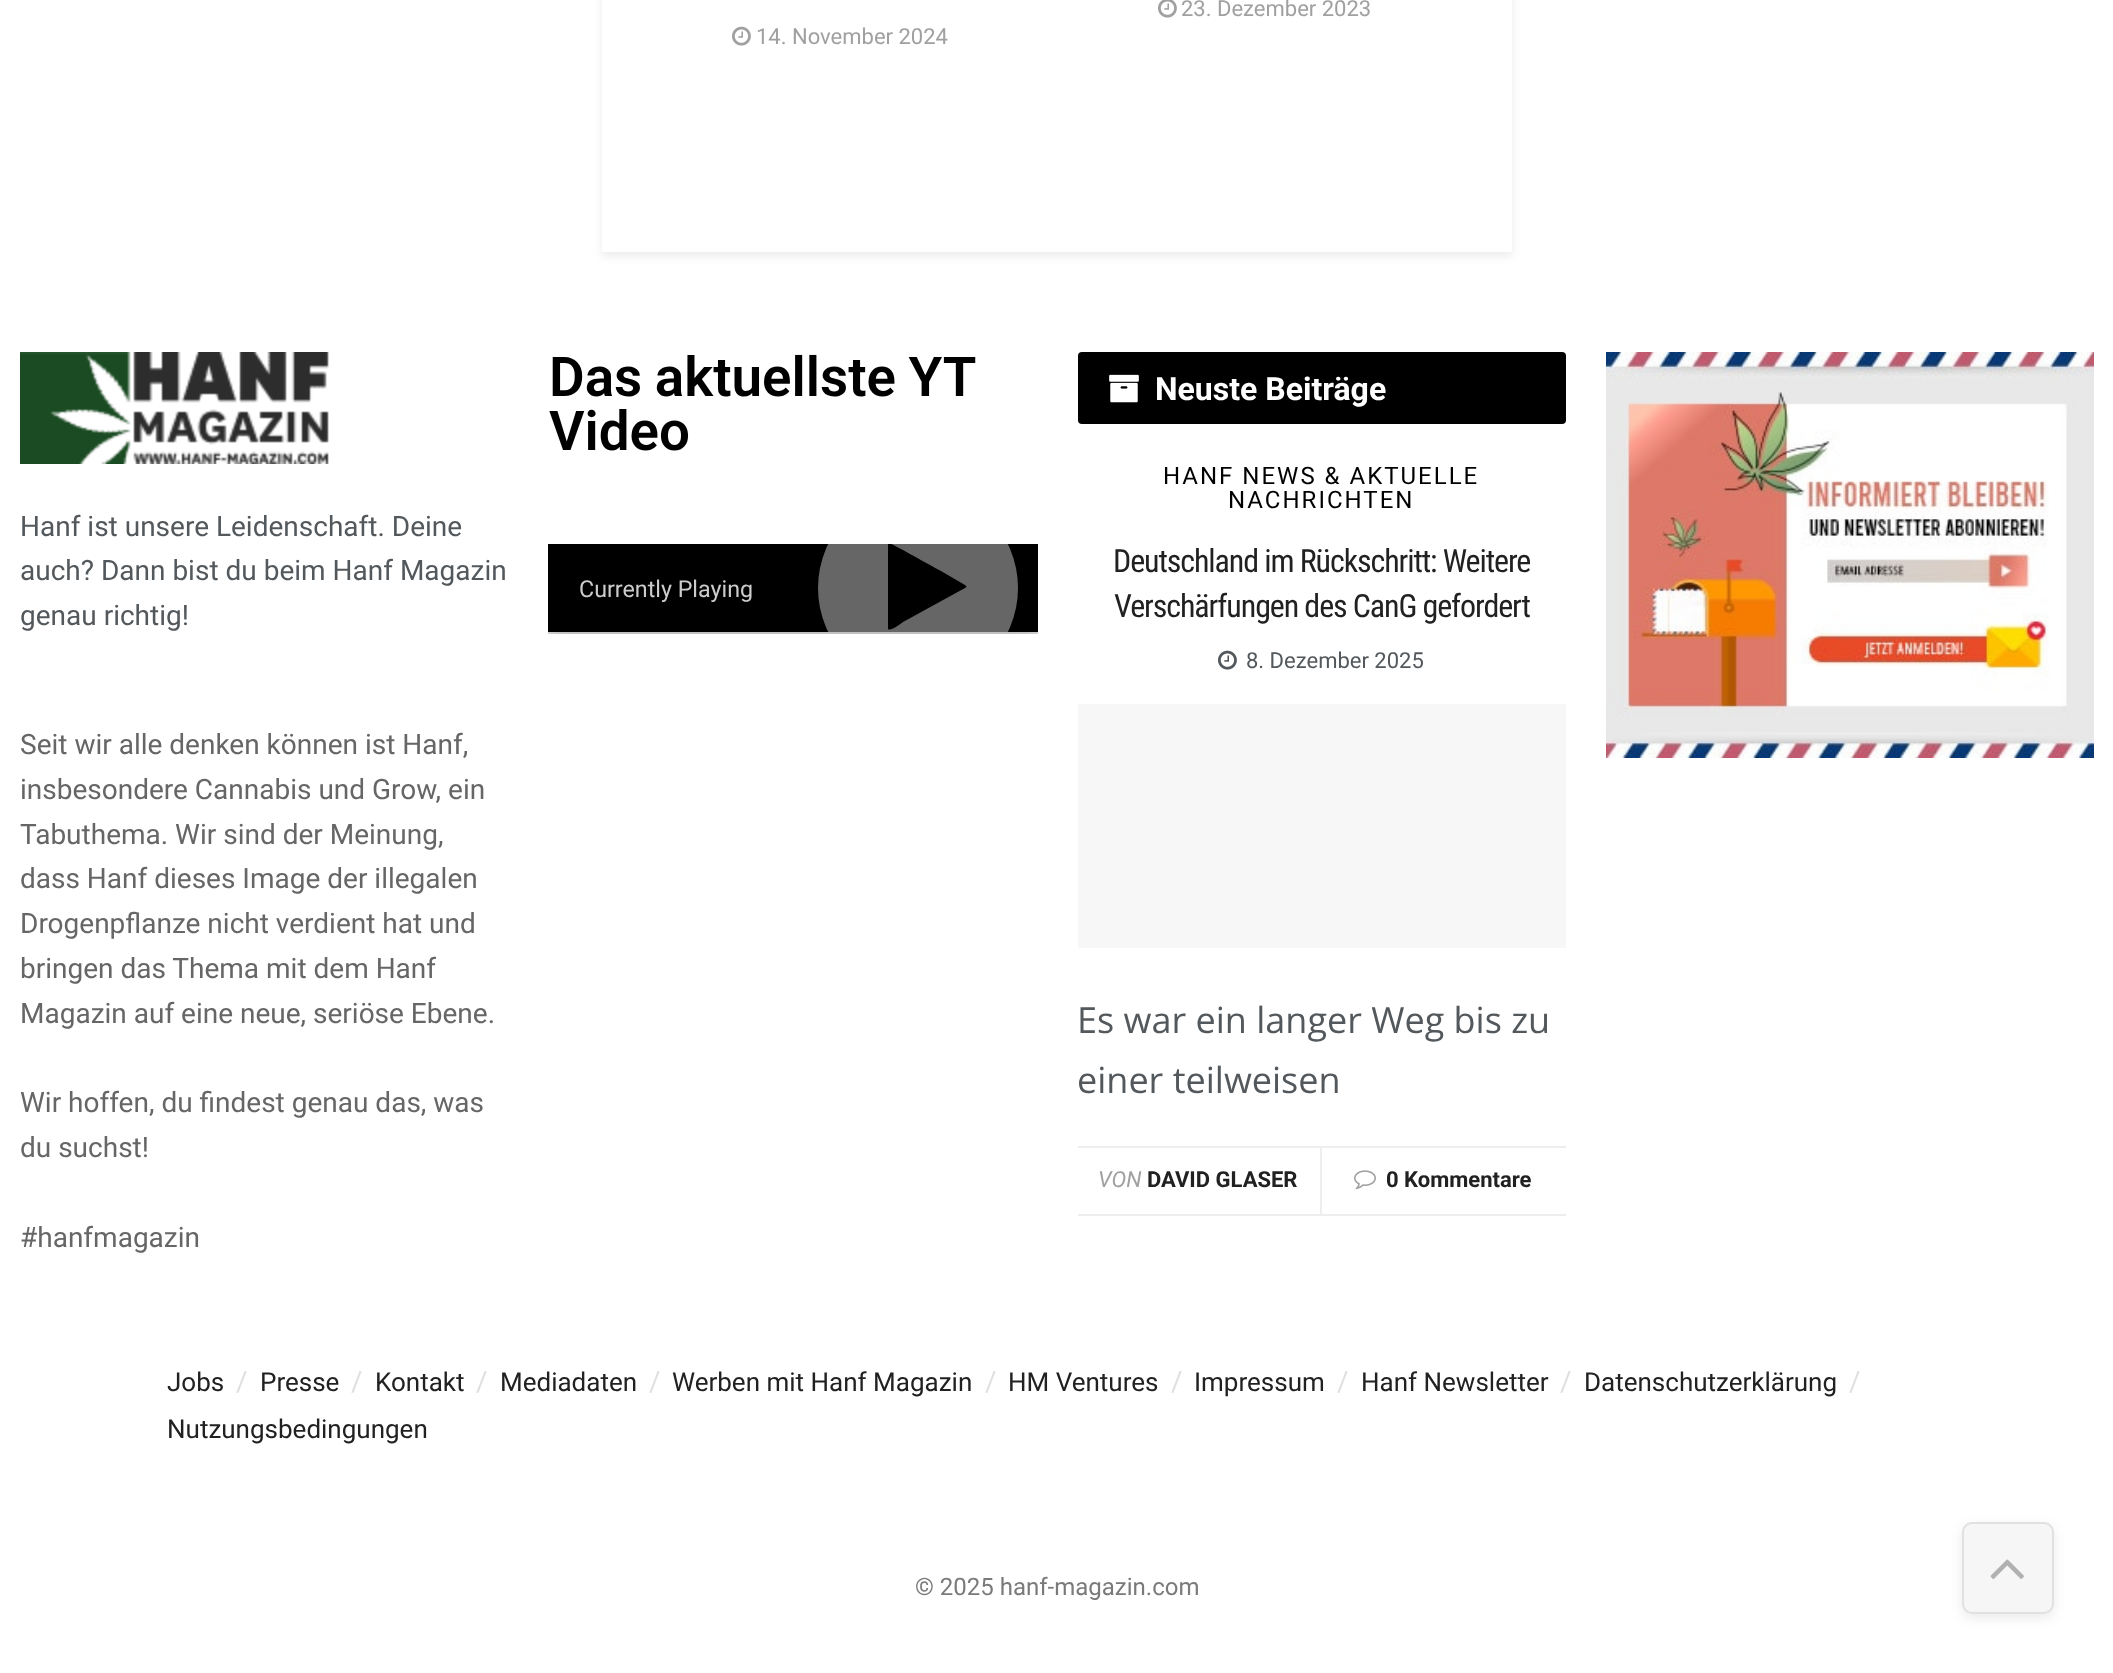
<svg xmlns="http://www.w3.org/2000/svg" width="2113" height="1673">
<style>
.a{font:22px Roboto;fill:#a0a0a0}
.b{font:28px Roboto;fill:#53585c}
.c{font:28px Roboto;fill:#666}
.d{font:600 54.75px Roboto;fill:#000}
.e{font:23.25px Roboto;fill:#ccc}
.f{font:bold 32px Roboto;fill:#fff}
.g{font:24px Roboto;letter-spacing:2px;fill:#000}
.h{font:32px Roboto Condensed;letter-spacing:-1.1px;fill:#212121}
.i{font:22px Roboto;fill:#53585c}
.j{font:36px Open Sans;fill:#53585c}
.k{font:italic 22px Roboto;fill:#a0a0a0}
.l{font:bold 22px Roboto;fill:#212121}
.m{font:26px Roboto;fill:#212121}
.n{font:28px Roboto;fill:#e0e0e0}
.o{font:24px Roboto;fill:#7a7a7a}
</style>
<defs>
<clipPath id="clip1"><path d="M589 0h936v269h-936zm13-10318h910v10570h-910z" clip-rule="evenodd"/></clipPath>
<clipPath id="clip2"><path d="M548 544h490v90H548z"/></clipPath>
<clipPath id="clip3"><path d="M548 544h490v88H548z"/></clipPath>
<clipPath id="clip4"><path d="M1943 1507h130v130h-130zm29 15h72c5.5 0 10 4.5 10 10v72c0 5.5-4.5 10-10 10h-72c-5.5 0-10-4.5-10-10v-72c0-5.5 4.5-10 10-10z" clip-rule="evenodd"/></clipPath>
</defs>
<rect width="100%" height="100%" fill="#fff"/>
<g clip-path="url(#clip1)">
<path fill="#00000014" filter="blur(4px)" d="M602 -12h910v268H602z"/>
</g>
<image href="1.png" x="1158" y="0" width="19" height="18"/>
<image href="2.png" x="732" y="26" width="19" height="20"/>
<image href="3.png" x="20" y="352" width="309" height="112"/>
<path fill="#e0e0e0" d="M548 632h490v2H548z"/>
<g clip-path="url(#clip2)">
<path fill="#00000033" filter="blur(10px)" d="M548 550h490v88H548z"/>
</g>
<path fill="#000" d="M548 544h490v88H548z"/>
<g clip-path="url(#clip3)">
<circle fill="#666" cx="918" cy="588" r="100"/>
<path fill="#000" d="M965 588l-62 34c-1 1-13 10-15 7v-85l1-1c2 0 46 25 52 28l24 14l1 1c1 1 0 2-1 2z"/>
</g>
<rect fill="#000" x="1078" y="352" width="488" height="72" rx="4"/>
<image href="4.png" x="1109" y="374" width="30" height="29"/>
<path fill="#eee" d="M1078 1214h488v2H1078z"/>
<image href="5.png" x="1218" y="650" width="19" height="20"/>
<path fill="#f7f7f7" d="M1078 704h488v244H1078z"/>
<path fill="#eee" d="M1078 1146h488v2H1078z"/>
<path fill="#eee" d="M1320 1148h2v66H1320z"/>
<image href="6.png" x="1354" y="1170" width="22" height="20"/>
<image href="7.png" x="1606" y="352" width="488" height="406"/>
<g clip-path="url(#clip4)">
<rect fill="#3333331a" filter="blur(6px)" x="1962" y="1526" width="92" height="92" rx="10"/>
</g>
<rect fill="#c3c3c326" x="1962" y="1522" width="92" height="92" rx="10"/>
<rect fill="none" stroke="#3333331c" stroke-width="2" x="1963" y="1523" width="90" height="90" rx="9"/>
<image href="8.png" x="1990" y="1559" width="34" height="20"/>
<text class="a" x="1181" y="16">23. Dezember 2023</text>
<text class="a" x="756" y="44">14. November 2024</text>
<text class="b" x="20" y="536">Hanf ist unsere Leidenschaft. Deine</text>
<text class="b" x="20" y="580">auch? Dann bist du beim Hanf Magazin</text>
<text class="b" x="20" y="625">genau richtig!</text>
<text class="c" x="20" y="754">Seit wir alle denken können ist Hanf,</text>
<text class="c" x="20" y="799">insbesondere Cannabis und Grow, ein</text>
<text class="c" x="20" y="844">Tabuthema. Wir sind der Meinung,</text>
<text class="c" x="20" y="888">dass Hanf dieses Image der illegalen</text>
<text class="c" x="20" y="933">Drogenpflanze nicht verdient hat und</text>
<text class="c" x="20" y="978">bringen das Thema mit dem Hanf</text>
<text class="c" x="20" y="1023">Magazin auf eine neue, seriöse Ebene.</text>
<text class="c" x="20" y="1112">Wir hoffen, du findest genau das, was</text>
<text class="c" x="20" y="1157">du suchst!</text>
<text class="c" x="20" y="1247">#hanfmagazin</text>
<text class="d" x="549" y="396" word-spacing="-1">Das aktuellste YT</text>
<text class="d" x="549" y="450">Video</text>
<text class="e" x="579" y="597">Currently Playing</text>
<text class="f" x="1155" y="400">Neuste Beiträge</text>
<text class="g" x="1163" y="484">HANF NEWS &amp; AKTUELLE</text>
<text class="g" x="1228" y="508">NACHRICHTEN</text>
<text class="h" x="1113" y="572">Deutschland im Rückschritt: Weitere</text>
<text class="h" x="1114" y="617">Verschärfungen des CanG gefordert</text>
<text class="i" x="1246" y="668">8. Dezember 2025</text>
<text class="j" x="1077" y="1033">Es war ein langer Weg bis zu</text>
<text class="j" x="1077" y="1093">einer teilweisen</text>
<text class="k" x="1098" y="1187">VON</text>
<text class="l" x="1147" y="1187">DAVID GLASER</text>
<text class="l" x="1386" y="1187">0 Kommentare</text>
<text class="m" x="167" y="1391">Jobs</text>
<text class="n" x="236" y="1391">/</text>
<text class="m" x="260" y="1391">Presse</text>
<text class="n" x="351" y="1391">/</text>
<text class="m" x="375" y="1391">Kontakt</text>
<text class="n" x="476" y="1391">/</text>
<text class="m" x="500" y="1391">Mediadaten</text>
<text class="n" x="649" y="1391">/</text>
<text class="m" x="672" y="1391">Werben mit Hanf Magazin</text>
<text class="n" x="985" y="1391">/</text>
<text class="m" x="1008" y="1391">HM Ventures</text>
<text class="n" x="1171" y="1391">/</text>
<text class="m" x="1194" y="1391">Impressum</text>
<text class="n" x="1337" y="1391">/</text>
<text class="m" x="1361" y="1391">Hanf Newsletter</text>
<text class="n" x="1560" y="1391">/</text>
<text class="m" x="1584" y="1391">Datenschutzerklärung</text>
<text class="n" x="1849" y="1391">/</text>
<text class="m" x="167" y="1438">Nutzungsbedingungen</text>
<text class="o" x="915" y="1595">© 2025 hanf-magazin.com</text>
</svg>
